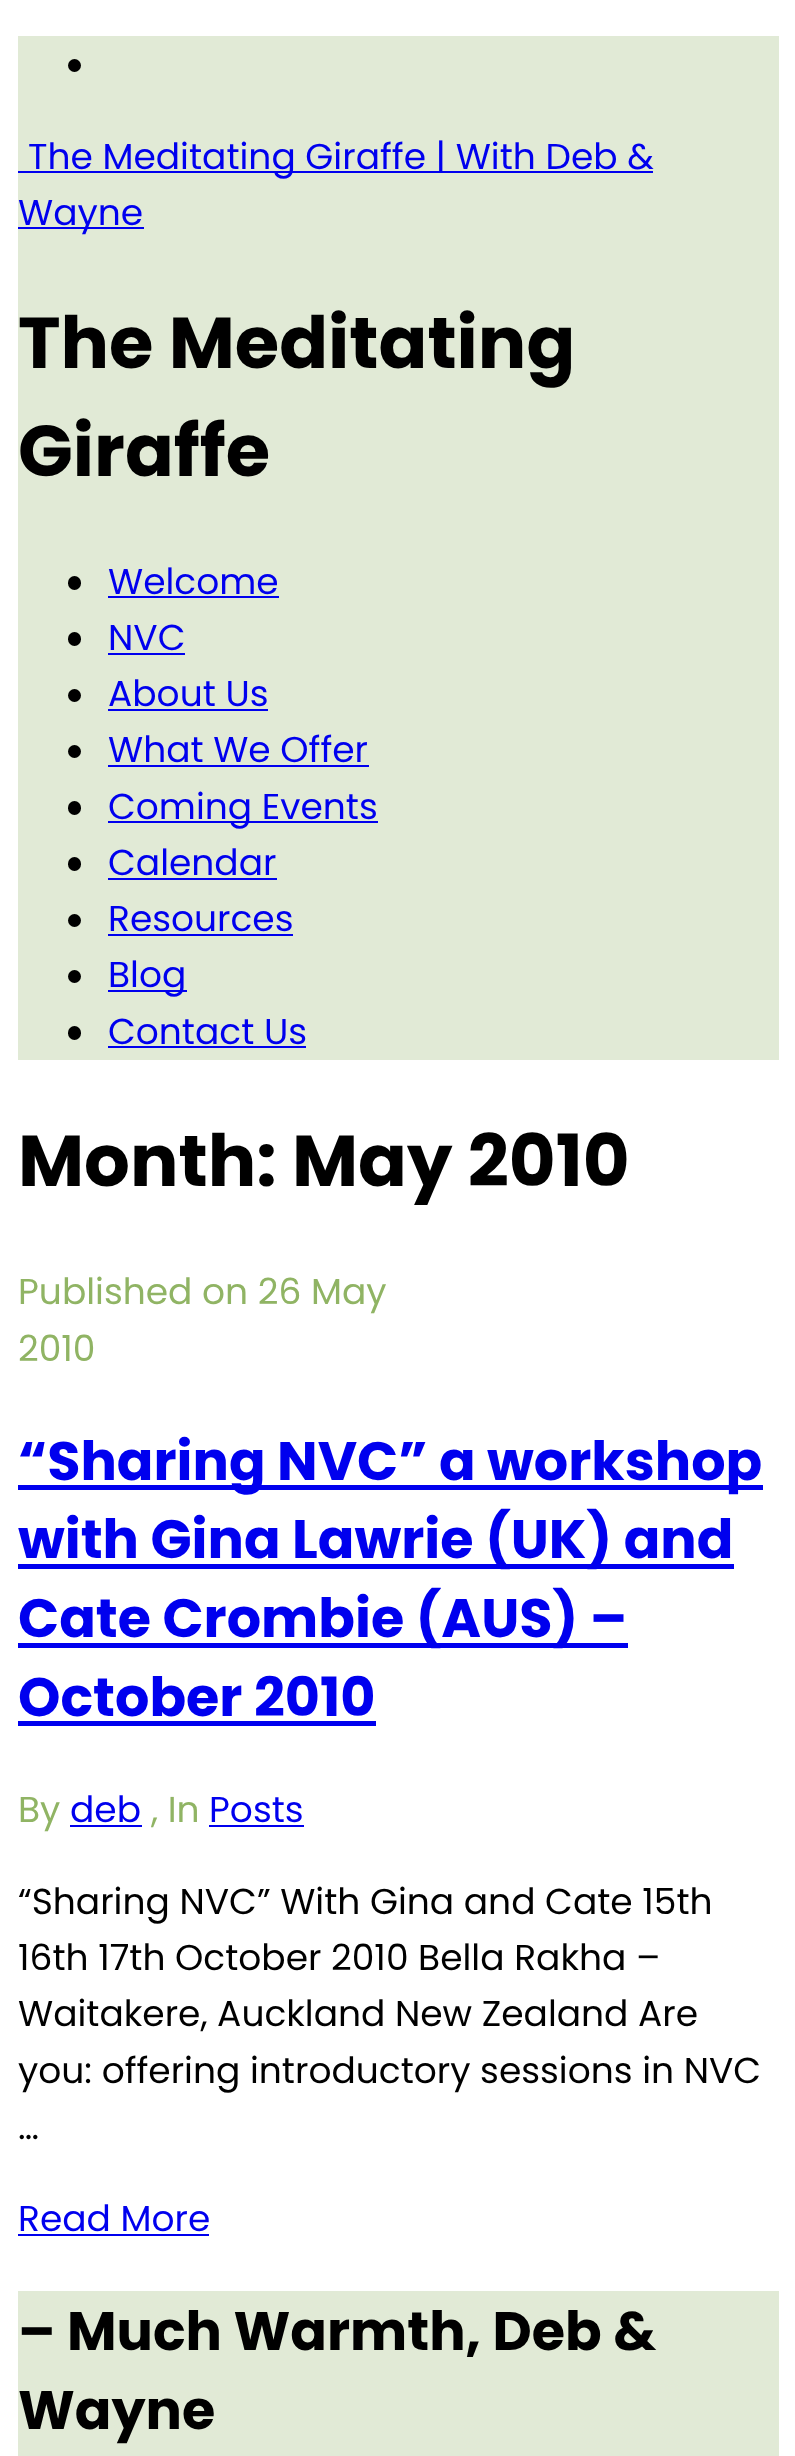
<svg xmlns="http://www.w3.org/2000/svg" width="795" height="2456">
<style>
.a{font:36px Poppins;fill:#00e}
.b{font:bold 72px Poppins;fill:#000}
.c{font:36px Poppins;fill:#90b464}
.d{font:bold 54px Poppins;fill:#00e}
.e{font:36px Poppins;fill:#000}
.f{font:bold 54px Poppins;fill:#000}
</style>
<rect width="100%" height="100%" fill="#fff"/>
<path fill="#e1ead6" d="M18 36h761v1024H18z"/>
<circle fill="#000" cx="74.5" cy="65.5" r="6.5"/>
<path fill="#00e" d="M18 171h635v2H18z"/>
<path fill="#00e" d="M18 227h126v2H18z"/>
<rect fill="#000" x="68" y="576" width="13" height="14" rx="6.5"/>
<path fill="#00e" d="M108 596h171v2H108z"/>
<rect fill="#000" x="68" y="632" width="13" height="14" rx="6.5"/>
<path fill="#00e" d="M108 653h77v2H108z"/>
<circle fill="#000" cx="74.5" cy="695.5" r="6.5"/>
<path fill="#00e" d="M108 709h160v2H108z"/>
<circle fill="#000" cx="74.5" cy="751.5" r="6.5"/>
<path fill="#00e" d="M108 765h261v2H108z"/>
<rect fill="#000" x="68" y="801" width="13" height="14" rx="6.5"/>
<path fill="#00e" d="M108 821h270v2H108z"/>
<rect fill="#000" x="68" y="857" width="13" height="14" rx="6.5"/>
<path fill="#00e" d="M108 878h169v2H108z"/>
<circle fill="#000" cx="74.5" cy="920.5" r="6.5"/>
<path fill="#00e" d="M108 934h185v2H108z"/>
<circle fill="#000" cx="74.5" cy="976.5" r="6.5"/>
<path fill="#00e" d="M108 990h79v2H108z"/>
<rect fill="#000" x="68" y="1026" width="13" height="14" rx="6.5"/>
<path fill="#00e" d="M108 1046h198v2H108z"/>
<path fill="#00e" d="M18 1485h745v5H18z"/>
<path fill="#00e" d="M18 1564h716v5H18z"/>
<path fill="#00e" d="M18 1643h610v5H18z"/>
<path fill="#00e" d="M18 1721h358v5H18z"/>
<path fill="#00e" d="M70 1825h72v2H70z"/>
<path fill="#00e" d="M209 1825h95v2H209z"/>
<path fill="#00e" d="M18 2234h191v2H18z"/>
<path fill="#e1ead6" d="M18 2291h761v165H18z"/>
<text class="a" x="28" y="169">The Meditating Giraffe | With Deb &amp;</text>
<text class="a" x="18" y="225">Wayne</text>
<text class="b" x="18" y="368">The Meditating</text>
<text class="b" x="18" y="476">Giraffe</text>
<text class="a" x="108" y="594">Welcome</text>
<text class="a" x="108" y="650">NVC</text>
<text class="a" x="108" y="706">About Us</text>
<text class="a" x="108" y="762">What We Offer</text>
<text class="a" x="108" y="819">Coming Events</text>
<text class="a" x="108" y="875">Calendar</text>
<text class="a" x="108" y="931">Resources</text>
<text class="a" x="108" y="987">Blog</text>
<text class="a" x="108" y="1044">Contact Us</text>
<text class="b" x="18" y="1186">Month: May 2010</text>
<text class="c" x="18" y="1304">Published on 26 May</text>
<text class="c" x="18" y="1361">2010</text>
<text class="d" x="18" y="1480">“Sharing NVC” a workshop</text>
<text class="d" x="18" y="1558">with Gina Lawrie (UK) and</text>
<text class="d" x="18" y="1637">Cate Crombie (AUS) –</text>
<text class="d" x="18" y="1716">October 2010</text>
<text class="c" x="18" y="1822">By</text>
<text class="a" x="70" y="1822">deb</text>
<text class="c" x="151" y="1822">, In</text>
<text class="a" x="209" y="1822">Posts</text>
<text class="e" x="18" y="1914">“Sharing NVC” With Gina and Cate 15th</text>
<text class="e" x="18" y="1970">16th 17th October 2010 Bella Rakha –</text>
<text class="e" x="18" y="2026">Waitakere, Auckland New Zealand Are</text>
<text class="e" x="18" y="2083">you: offering introductory sessions in NVC</text>
<text class="e" x="18" y="2139">…</text>
<text class="a" x="18" y="2231">Read More</text>
<text class="f" x="18" y="2350">– Much Warmth, Deb &amp;</text>
<text class="f" x="18" y="2429">Wayne</text>
</svg>
